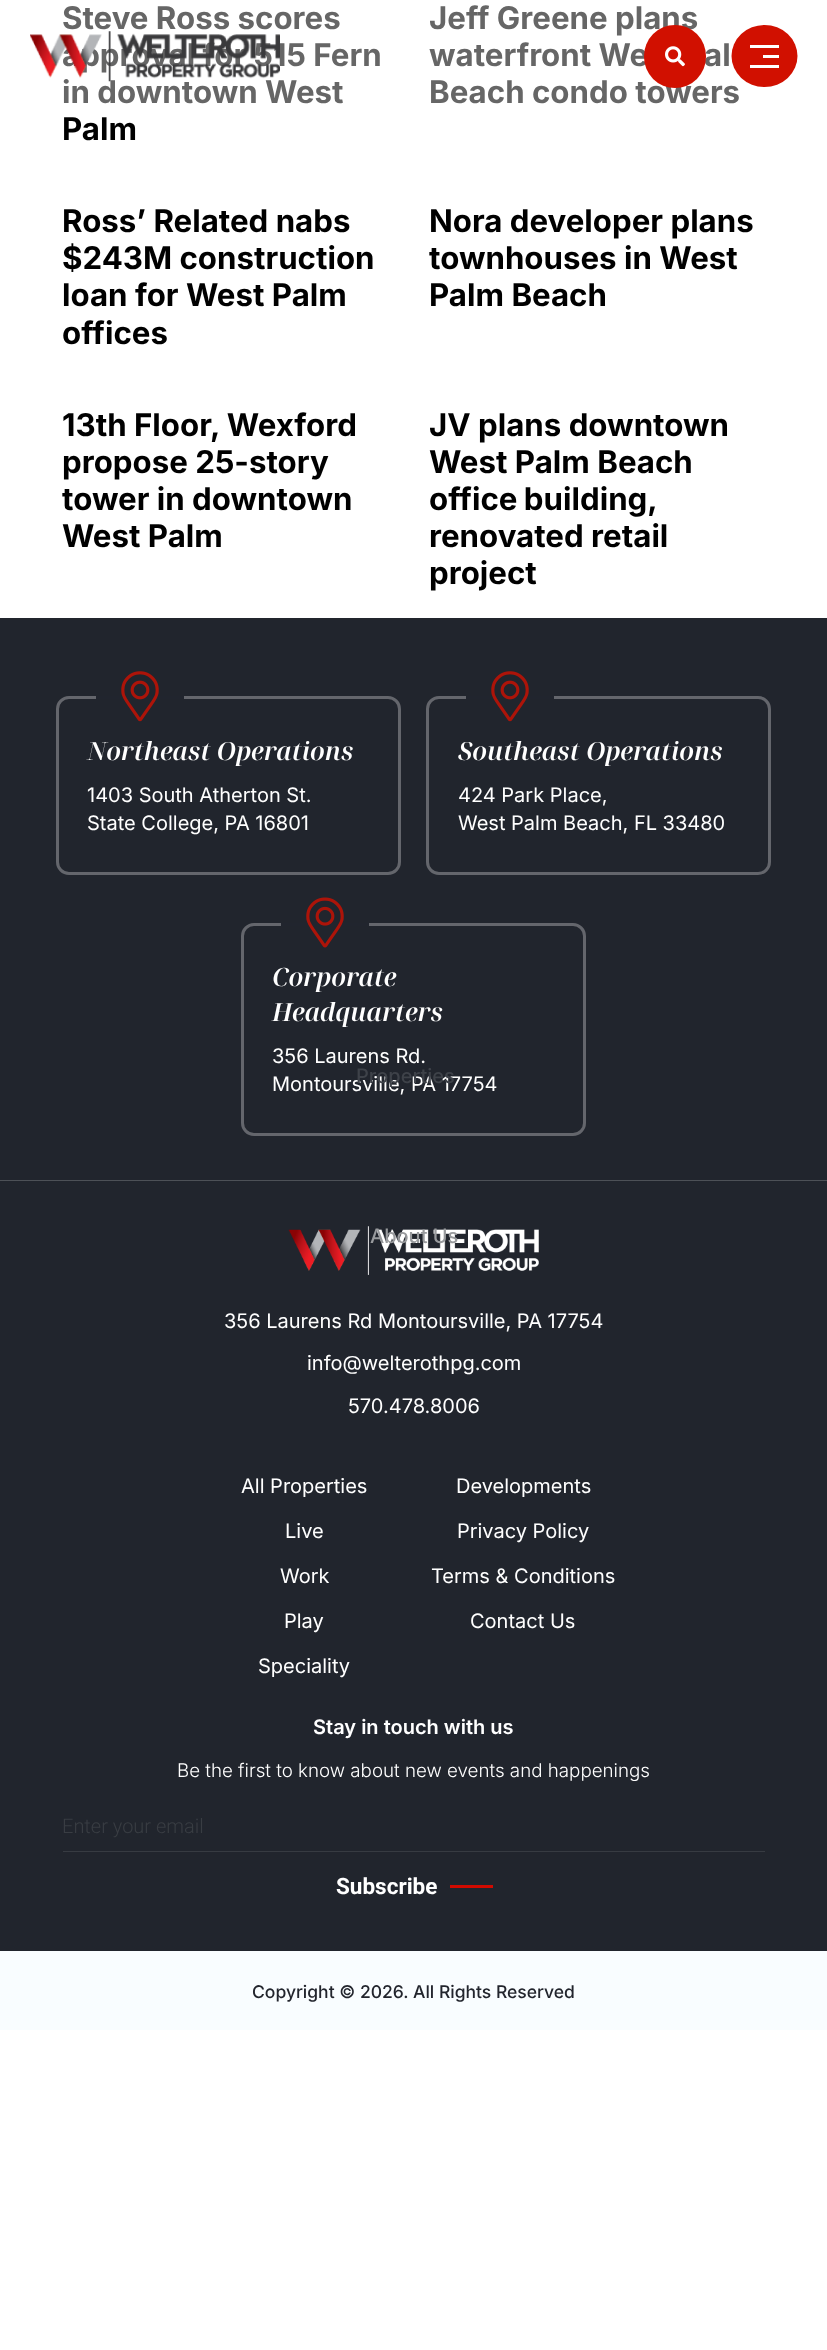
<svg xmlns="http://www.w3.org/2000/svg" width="827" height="2350">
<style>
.a{font:bold 31.25px Inter;fill:#666}
.b{font:bold 31.25px Inter;fill:#000}
.c{font:italic 600 25px Noto Serif Display;fill:#fff}
.d{font:20px Inter;fill:#fff}
.e{font:500 20px Inter;fill:#3e4249}
.f{font:500 20px Inter;fill:#989a9d}
.g{font:600 20px Inter;fill:#fff}
.h{font:300 18.75px Inter;fill:#fff}
.i{font:300 20px Roboto;fill:#393d43}
.j{font:bold 22.5px Roboto;fill:#fff}
.k{font:500 17.5px Inter;fill:#22252d}
</style>
<rect width="100%" height="100%" fill="#fff"/>
<path fill="#21252d" d="M0 618h827v562H0z"/>
<path fill="#4d5157" d="M0 1180h827v1H0z"/>
<rect fill="none" stroke="#64666c" stroke-width="3" x="57.5" y="697.5" width="342" height="176" rx="11.5"/>
<path fill="#21252e" d="M96 696h88v3H96z"/>
<image href="1.png" x="121" y="671" width="38" height="51"/>
<rect fill="none" stroke="#64666c" stroke-width="3" x="427.5" y="697.5" width="342" height="176" rx="11.5"/>
<path fill="#21252e" d="M466 696h88v3H466z"/>
<image href="1.png" x="491" y="671" width="38" height="51"/>
<rect fill="none" stroke="#64666c" stroke-width="3" x="242.5" y="924.5" width="342" height="210" rx="11.5"/>
<path fill="#21252e" d="M281 923h88v3H281z"/>
<image href="2.png" x="306" y="897" width="38" height="51"/>
<path fill="#21252d" d="M0 1181h827v770H0z"/>
<image href="5.png" x="288" y="1226" width="251" height="49"/>
<path fill="#373b42" d="M63 1851h702v1H63z"/>
<path fill="#d10a00" d="M450 1885h43v3H450z"/>
<path fill="#f9fdff" d="M0 1951h827v79H0z"/>
<text class="a" x="62" y="29">Steve Ross scores</text>
<text class="a" x="62" y="66">approval for 515 Fern</text>
<text class="a" x="62" y="103">in downtown West</text>
<text class="b" x="62" y="140">Palm</text>
<text class="a" x="429" y="29">Jeff Greene plans</text>
<text class="a" x="429" y="66">waterfront We</text>
<text class="a" x="704" y="66">al</text>
<text class="a" x="429" y="103">Beach condo towers</text>
<text class="b" x="62" y="232">Ross’ Related nabs</text>
<text class="b" x="62" y="269">$243M construction</text>
<text class="b" x="62" y="306">loan for West Palm</text>
<text class="b" x="62" y="344">offices</text>
<text class="b" x="429" y="232">Nora developer plans</text>
<text class="b" x="429" y="269">townhouses in West</text>
<text class="b" x="429" y="306">Palm Beach</text>
<text class="b" x="62" y="436">13th Floor, Wexford</text>
<text class="b" x="62" y="473">propose 25-story</text>
<text class="b" x="62" y="510">tower in downtown</text>
<text class="b" x="62" y="547">West Palm</text>
<text class="b" x="429" y="436">JV plans downtown</text>
<text class="b" x="429" y="473">West Palm Beach</text>
<text class="b" x="429" y="510" word-spacing="-1">office building,</text>
<text class="b" x="429" y="547">renovated retail</text>
<text class="b" x="429" y="584">project</text>
<text class="c" x="87" y="760">Northeast Operations</text>
<text class="d" x="87" y="802">1403 South Atherton St.</text>
<text class="d" x="87" y="830">State College, PA 16801</text>
<text class="c" x="458" y="760">Southeast Operations</text>
<text class="d" x="458" y="802">424 Park Place,</text>
<text class="d" x="458" y="830">West Palm Beach, FL 33480</text>
<text class="c" x="272" y="986">Corporate</text>
<text class="c" x="272" y="1021">Headquarters</text>
<text class="d" x="272" y="1063">356 Laurens Rd.</text>
<text class="d" x="272" y="1091">Montoursville, PA 17754</text>
<image href="3.png" x="30" y="31" width="250" height="51"/>
<rect fill="#d11000" x="644" y="25" width="62" height="63" rx="31"/>
<image href="4.png" x="665" y="46" width="20" height="21"/>
<ellipse fill="#d11000" cx="764.5" cy="56" rx="33" ry="31"/>
<path fill="#fff" d="M750 45h29v3H750z"/>
<path fill="#fff" d="M763 55h16v3H763z"/>
<path fill="#fff" d="M750 65h29v3H750z"/>
<text class="e" x="356" y="1083">Properties</text>
<text class="f" x="370" y="1243">About Us</text>
<text class="d" x="224" y="1328">356 Laurens Rd Montoursville, PA 17754</text>
<text class="d" x="307" y="1370">info@welterothpg.com</text>
<text class="d" x="348" y="1413">570.478.8006</text>
<text class="d" x="241" y="1493">All Properties</text>
<text class="d" x="285" y="1538">Live</text>
<text class="d" x="280" y="1583">Work</text>
<text class="d" x="284" y="1628">Play</text>
<text class="d" x="258" y="1673">Speciality</text>
<text class="d" x="456" y="1493">Developments</text>
<text class="d" x="457" y="1538">Privacy Policy</text>
<text class="d" x="431" y="1583">Terms &amp; Conditions</text>
<text class="d" x="470" y="1628">Contact Us</text>
<text class="g" x="313" y="1734">Stay in touch with us</text>
<text class="h" x="177" y="1777">Be the first to know about new events and happenings</text>
<text class="i" x="62" y="1833">Enter your email</text>
<text class="j" x="336" y="1894">Subscribe</text>
<text class="k" x="252" y="1998">Copyright © 2026. All Rights Reserved</text>
</svg>
